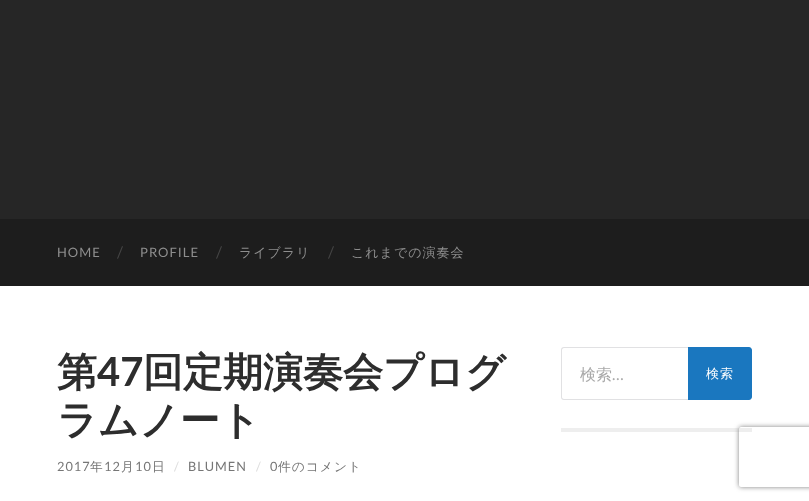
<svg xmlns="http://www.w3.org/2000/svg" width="809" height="501">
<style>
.a{font:13px Lato;letter-spacing:1px;fill:#8e8e8e}
.b{font:16px Lato;fill:#444}
.c{font:500 13px WenQuanYi Zen Hei;letter-spacing:1px;fill:#8e8e8e}
.d{font:bold 40px WenQuanYi Zen Hei;fill:#2d2d2d}
.e{font:bold 40px Lato;fill:#2d2d2d}
.f{font:12.75px Lato;letter-spacing:1px;fill:#767676}
.g{font:500 12.75px WenQuanYi Zen Hei;letter-spacing:1px;fill:#767676}
.h{font:12.75px Lato;letter-spacing:1px;fill:#ddd}
.i{font:500 16px WenQuanYi Zen Hei;fill:#a9a9a9}
.j{font:16px Lato;fill:#a9a9a9}
.k{font:500 13px WenQuanYi Zen Hei;letter-spacing:1px;fill:#fff}
</style>
<defs>
<clipPath id="clip1"><path d="M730 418h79v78h-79zm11 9h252c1 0 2 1 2 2v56c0 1-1 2-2 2h-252c-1 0-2-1-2-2v-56c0-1 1-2 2-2z" clip-rule="evenodd"/></clipPath>
</defs>
<rect width="100%" height="100%" fill="#fff"/>
<path fill="#262626" d="M0 0h809v219H0z"/>
<path fill="#1d1d1d" d="M0 219h809v67H0z"/>
<path fill="#eee" d="M561 428h191v4H561z"/>
<path fill="#e1e1e3" fill-rule="evenodd" d="M564 347h124v53h-124c-2 0-3-1-3-3v-47c0-2 1-3 3-3zm0 1h124v51h-124c-1 0-2-1-2-2v-47c0-1 1-2 2-2z"/>
<path fill="#1a77bf" d="M688 347h61c1.5 0 3 1.5 3 3v47c0 1.5-1.5 3-3 3h-61z"/>
<g clip-path="url(#clip1)">
<rect fill="#808080" filter="blur(2.5px)" x="739" y="427" width="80" height="60" rx="2"/>
</g>
<text class="a" x="57" y="257">HOME</text>
<text class="b" x="117" y="258">/</text>
<text class="a" x="140" y="257">PROFILE</text>
<text class="b" x="216" y="258">/</text>
<text class="c" x="239" y="257">ライブラリ</text>
<text class="b" x="328" y="258">/</text>
<text class="c" x="351" y="257">これまでの演奏会</text>
<text class="d" x="57" y="386">第</text>
<text class="e" x="97" y="386">47</text>
<text class="d" x="143" y="386">回定期演奏会プログ</text>
<text class="d" x="57" y="434">ラムノート</text>
<text class="f" x="57" y="471">2017</text>
<text class="g" x="90" y="471">年</text>
<text class="f" x="104" y="471">12</text>
<text class="g" x="121" y="471">月</text>
<text class="f" x="135" y="471">10</text>
<text class="g" x="152" y="471">日</text>
<text class="h" x="174" y="471">/</text>
<text class="f" x="188" y="471">BLUMEN</text>
<text class="h" x="256" y="471">/</text>
<text class="f" x="270" y="471">0</text>
<text class="g" x="278" y="471">件のコメント</text>
<text class="i" x="580" y="380">検索</text>
<text class="j" x="612" y="380">…</text>
<text class="k" x="706" y="378">検索</text>
</svg>
